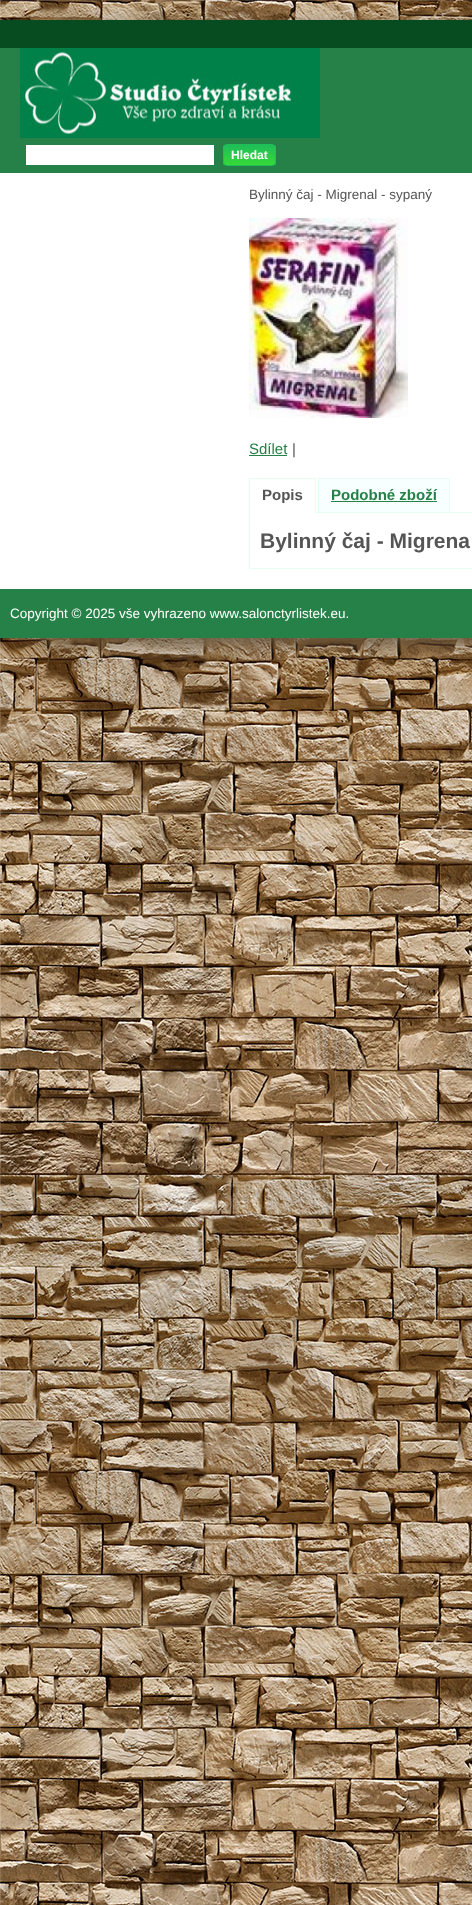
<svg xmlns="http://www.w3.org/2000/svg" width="472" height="1905">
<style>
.a{font:bold 12px Liberation Sans;fill:#fff}
.b{font:13.5px Liberation Sans;fill:#555}
.c{font:15px Liberation Sans;fill:#258147}
.d{font:15px Liberation Sans;fill:#555}
.e{font:bold 15px Liberation Sans;fill:#555}
.f{font:bold 15px Liberation Sans;fill:#258147}
.g{font:bold 21px Liberation Sans;fill:#555}
.h{font:13.5px Liberation Sans;fill:#fff}
</style>
<defs>
<clipPath id="clip1"><rect x="223" y="144" width="53" height="22" rx="4"/></clipPath>
<linearGradient id="g1" gradientUnits="userSpaceOnUse" x1="224" y1="145" x2="224" y2="165"><stop offset="0" stop-color="#1ebe59"/><stop offset="1" stop-color="#36d937"/></linearGradient>
</defs>
<rect width="100%" height="100%" fill="#fff"/>
<image href="1.png" x="0" y="0" width="472" height="1905"/>
<rect fill="#655239" filter="blur(10px)" x="4" y="26" width="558" height="618" rx="60"/>
<path fill="#fff" d="M0 173h472v416H0z"/>
<path fill="#064c20" d="M0 20h472v28H0z"/>
<path fill="#258147" d="M0 48h472v125H0z"/>
<image href="2.png" x="20" y="48" width="300" height="90"/>
<path fill="#fff" d="M26 145h188v20H26z"/>
<g clip-path="url(#clip1)">
<path fill="url(#g1)" d="M223 145h53v20H223z"/>
</g>
<rect fill="none" stroke="#1ebe59" x="223.5" y="144.5" width="52" height="21" rx="3.5"/>
<image href="3.png" x="249" y="218" width="159" height="200"/>
<path fill="#258147" d="M249 455h38v1H249z"/>
<path fill="#e6feef" d="M249 478h67v1H249z"/>
<path fill="none" stroke="#e6feef" d="M249.5 512.5h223v56H249.5z"/>
<path fill="#e6feef" d="M315 478h1v35H315z"/>
<path fill="#fff" d="M249 512h67v1H249z"/>
<path fill="#e6feef" d="M249 478h1v35H249z"/>
<path fill="#f7ffff" stroke="#e6feef" d="M318.5 478.5h131v34H318.5z"/>
<path fill="#258147" d="M331 501h106v1H331z"/>
<path fill="#258147" d="M0 589h472v49H0z"/>
<text class="a" x="231" y="159">Hledat</text>
<text class="b" x="249" y="199">Bylinný čaj - Migrenal - sypaný</text>
<text class="c" x="249" y="454">Sdílet</text>
<text class="d" x="292" y="454">|</text>
<text class="e" x="262" y="500">Popis</text>
<text class="f" x="331" y="500">Podobné zboží</text>
<text class="g" x="260" y="548">Bylinný čaj - Migrena</text>
<text class="h" x="10" y="618">Copyright © 2025 vše vyhrazeno www.salonctyrlistek.eu.</text>
</svg>
